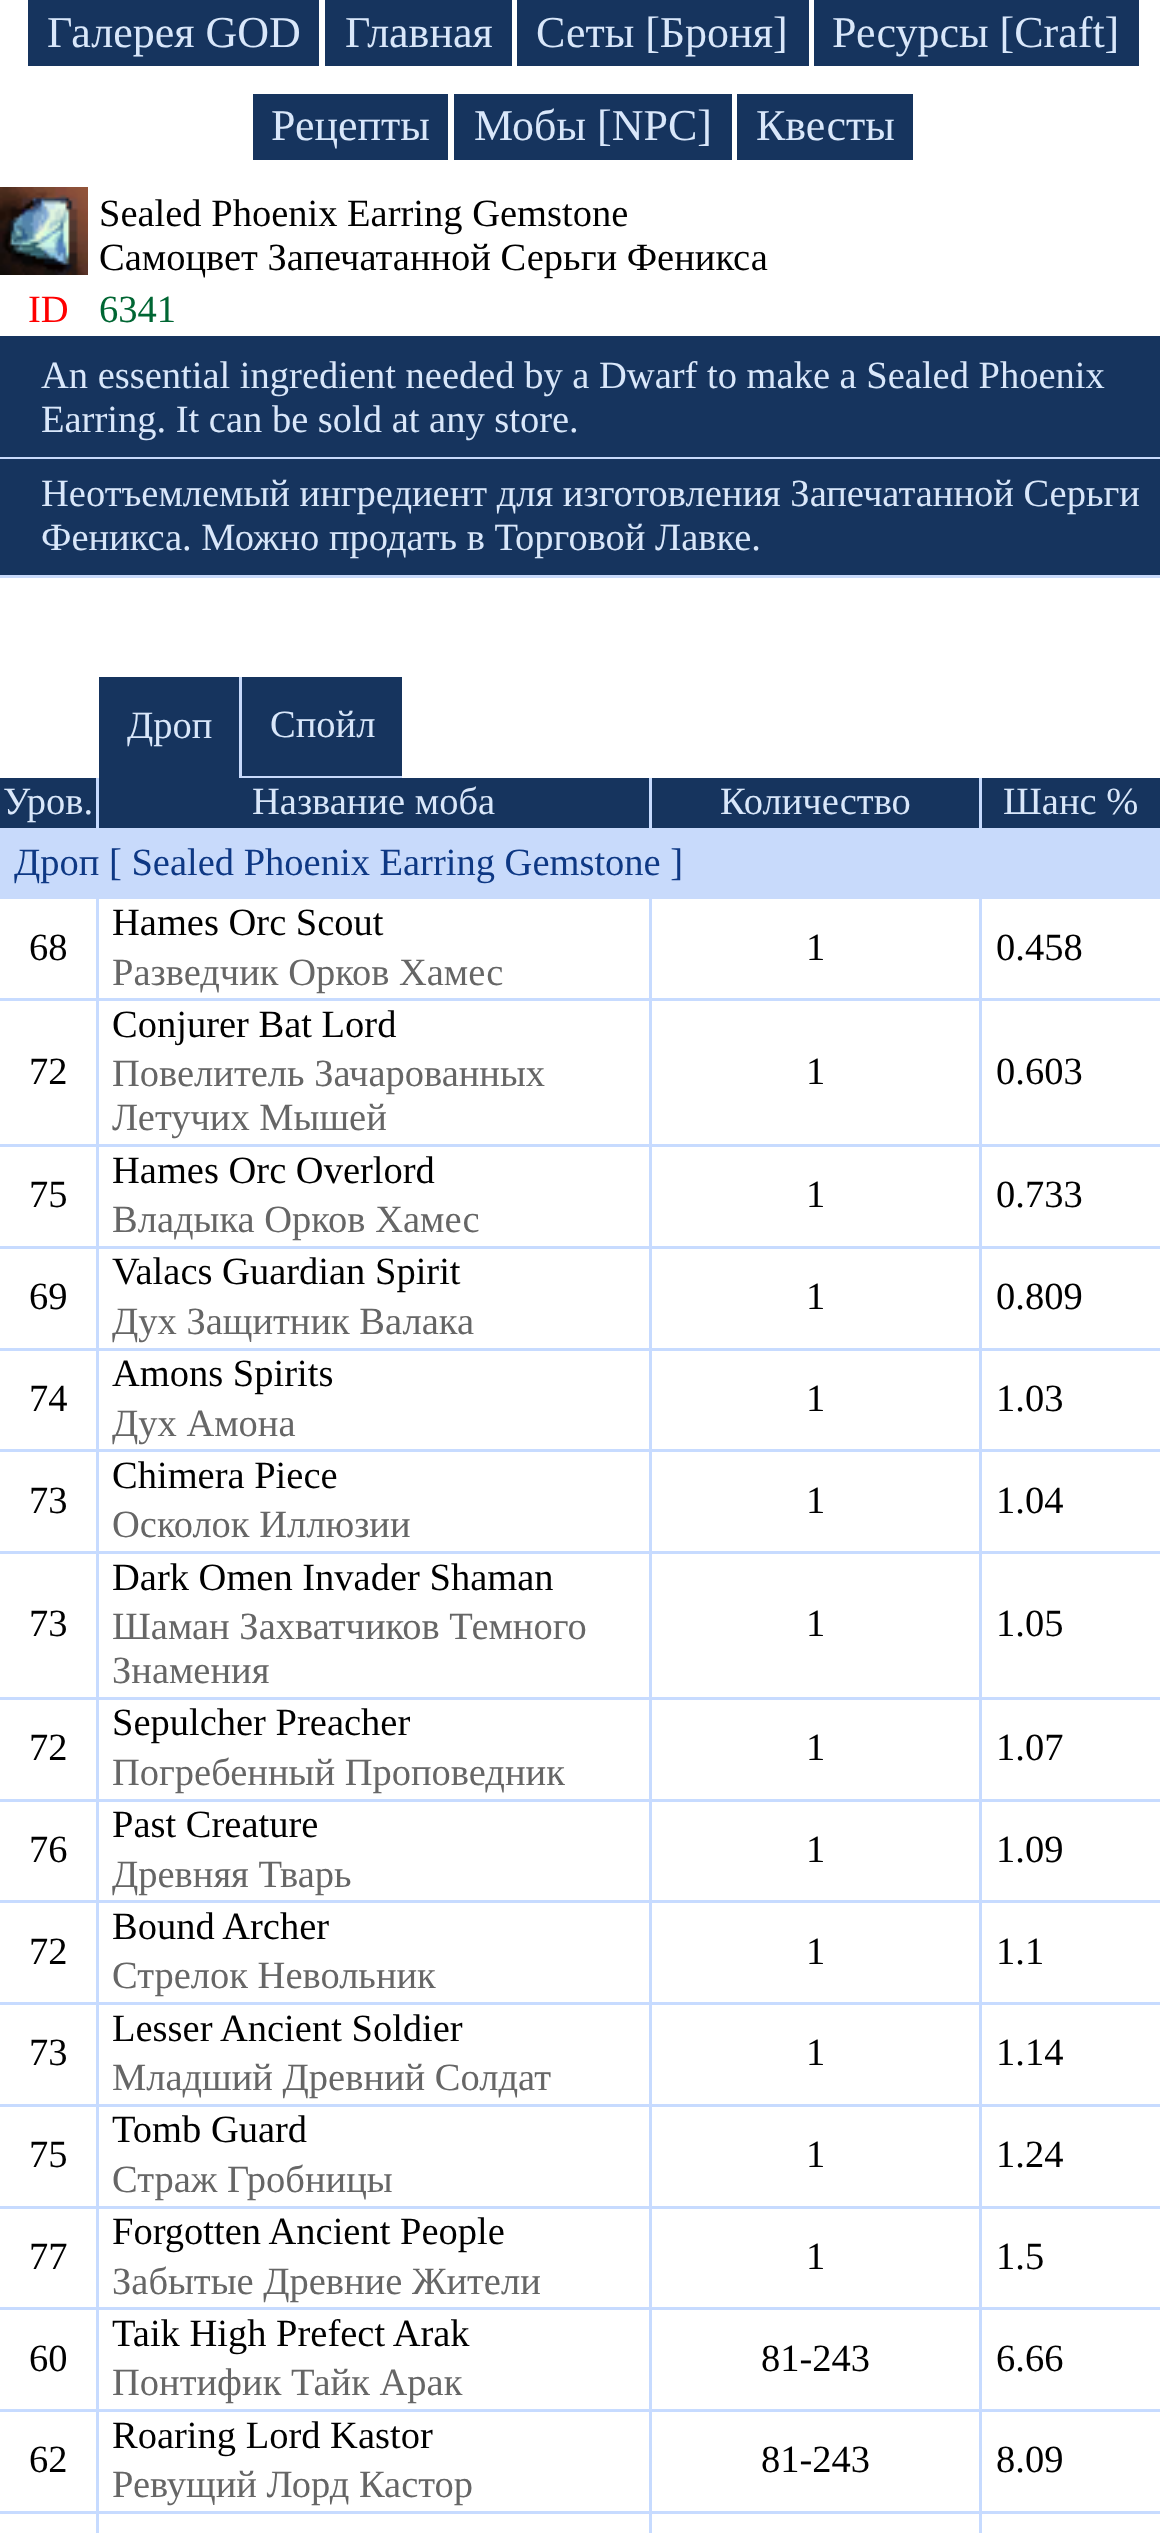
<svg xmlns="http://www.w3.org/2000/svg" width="1160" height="2533">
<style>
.a{font:44px Liberation Serif;fill:#d9e7fa}
.b{font:38.5px Liberation Serif;fill:#000}
.c{font:38.5px Liberation Serif;fill:#f00}
.d{font:38.5px Liberation Serif;fill:#063}
.e{font:38.5px Liberation Serif;fill:#d9e7fa}
.f{font:38.5px Liberation Serif;fill:#0e3884}
.g{font:38.5px Liberation Serif;fill:#666}
</style>
<rect width="100%" height="100%" fill="#fff"/>
<path fill="#16345e" d="M28 0h291v66H28z"/>
<path fill="#16345e" d="M325 0h187v66H325z"/>
<path fill="#16345e" d="M517 0h292v66H517z"/>
<path fill="#16345e" d="M814 0h325v66H814z"/>
<path fill="#16345e" d="M253 94h195v66H253z"/>
<path fill="#16345e" d="M454 94h278v66H454z"/>
<path fill="#16345e" d="M737 94h176v66H737z"/>
<image href="1.png" x="0" y="187" width="88" height="88"/>
<path fill="#16345e" d="M0 336h1160v121H0z"/>
<path fill="#c8dafb" d="M0 457h1160v2H0z"/>
<path fill="#16345e" d="M0 459h1160v116H0z"/>
<path fill="#c8dafb" d="M0 575h1160v3H0z"/>
<path fill="#16345e" d="M99 677h140v101H99z"/>
<path fill="#c8dafb" d="M239 677h3v101H239z"/>
<path fill="#16345e" d="M242 677h160v99H242z"/>
<path fill="#c8dafb" d="M242 776h160v2H242z"/>
<path fill="#16345e" d="M0 778h96v50H0z"/>
<path fill="#c7dbff" d="M96 778h3v50H96z"/>
<path fill="#16345e" d="M99 778h550v50H99z"/>
<path fill="#c7dbff" d="M649 778h3v50H649z"/>
<path fill="#16345e" d="M652 778h327v50H652z"/>
<path fill="#c7dbff" d="M979 778h3v50H979z"/>
<path fill="#16345e" d="M982 778h178v50H982z"/>
<path fill="#c8dafb" d="M0 828h1160v71H0z"/>
<path fill="#c7dbff" d="M96 899h3v451H96z"/>
<path fill="#c7dbff" d="M0 998h99v3H0z"/>
<path fill="#c7dbff" d="M649 899h3v451H649z"/>
<path fill="#c7dbff" d="M99 998h553v3H99z"/>
<path fill="#c7dbff" d="M979 899h3v451H979z"/>
<path fill="#c7dbff" d="M652 998h508v3H652z"/>
<path fill="#c7dbff" d="M0 1144h1160v3H0z"/>
<path fill="#c7dbff" d="M0 1246h1160v3H0z"/>
<path fill="#c7dbff" d="M0 1348h1160v3H0z"/>
<path fill="#c7dbff" d="M96 1350h3v451H96z"/>
<path fill="#c7dbff" d="M0 1449h99v3H0z"/>
<path fill="#c7dbff" d="M649 1350h3v451H649z"/>
<path fill="#c7dbff" d="M99 1449h553v3H99z"/>
<path fill="#c7dbff" d="M979 1350h3v451H979z"/>
<path fill="#c7dbff" d="M652 1449h508v3H652z"/>
<path fill="#c7dbff" d="M0 1551h1160v3H0z"/>
<path fill="#c7dbff" d="M0 1697h1160v3H0z"/>
<path fill="#c7dbff" d="M0 1799h1160v3H0z"/>
<path fill="#c7dbff" d="M96 1801h3v407H96z"/>
<path fill="#c7dbff" d="M0 1900h99v3H0z"/>
<path fill="#c7dbff" d="M649 1801h3v407H649z"/>
<path fill="#c7dbff" d="M99 1900h553v3H99z"/>
<path fill="#c7dbff" d="M979 1801h3v407H979z"/>
<path fill="#c7dbff" d="M652 1900h508v3H652z"/>
<path fill="#c7dbff" d="M0 2002h1160v3H0z"/>
<path fill="#c7dbff" d="M0 2104h1160v3H0z"/>
<path fill="#c7dbff" d="M0 2206h1160v3H0z"/>
<path fill="#c7dbff" d="M96 2208h3v325H96z"/>
<path fill="#c7dbff" d="M0 2307h99v3H0z"/>
<path fill="#c7dbff" d="M649 2208h3v325H649z"/>
<path fill="#c7dbff" d="M99 2307h553v3H99z"/>
<path fill="#c7dbff" d="M979 2208h3v325H979z"/>
<path fill="#c7dbff" d="M652 2307h508v3H652z"/>
<path fill="#c7dbff" d="M0 2409h1160v3H0z"/>
<path fill="#c7dbff" d="M0 2511h1160v3H0z"/>
<text class="a" x="47" y="47">Галерея GOD</text>
<text class="a" x="345" y="47">Главная</text>
<text class="a" x="536" y="47">Сеты [Броня]</text>
<text class="a" x="832" y="47">Ресурсы [Craft]</text>
<text class="a" x="271" y="140">Рецепты</text>
<text class="a" x="474" y="140">Мобы [NPC]</text>
<text class="a" x="756" y="140">Квесты</text>
<text class="b" x="99" y="226">Sealed Phoenix Earring Gemstone</text>
<text class="b" x="99" y="270">Самоцвет Запечатанной Серьги Феникса</text>
<text class="c" x="28" y="322">ID</text>
<text class="d" x="99" y="322">6341</text>
<text class="e" x="41" y="388">An essential ingredient needed by a Dwarf to make a Sealed Phoenix</text>
<text class="e" x="41" y="432">Earring. It can be sold at any store.</text>
<text class="e" x="41" y="506">Неотъемлемый ингредиент для изготовления Запечатанной Серьги</text>
<text class="e" x="41" y="550">Феникса. Можно продать в Торговой Лавке.</text>
<text class="e" x="127" y="738">Дроп</text>
<text class="e" x="270" y="737">Спойл</text>
<text class="e" x="3" y="814">Уров.</text>
<text class="e" x="252" y="814">Название моба</text>
<text class="e" x="720" y="814">Количество</text>
<text class="e" x="1003" y="814">Шанс %</text>
<text class="f" x="14" y="875">Дроп [ Sealed Phoenix Earring Gemstone ]</text>
<text class="b" x="29" y="960">68</text>
<text class="b" x="112" y="935">Hames Orc Scout</text>
<text class="g" x="112" y="985">Разведчик Орков Хамес</text>
<text class="b" x="806" y="960">1</text>
<text class="b" x="996" y="960">0.458</text>
<text class="b" x="29" y="1084">72</text>
<text class="b" x="112" y="1037">Conjurer Bat Lord</text>
<text class="g" x="112" y="1086">Повелитель Зачарованных</text>
<text class="g" x="112" y="1130">Летучих Мышей</text>
<text class="b" x="806" y="1084">1</text>
<text class="b" x="996" y="1084">0.603</text>
<text class="b" x="29" y="1207">75</text>
<text class="b" x="112" y="1183">Hames Orc Overlord</text>
<text class="g" x="112" y="1232">Владыка Орков Хамес</text>
<text class="b" x="806" y="1207">1</text>
<text class="b" x="996" y="1207">0.733</text>
<text class="b" x="29" y="1309">69</text>
<text class="b" x="112" y="1284">Valacs Guardian Spirit</text>
<text class="g" x="112" y="1334">Дух Защитник Валака</text>
<text class="b" x="806" y="1309">1</text>
<text class="b" x="996" y="1309">0.809</text>
<text class="b" x="29" y="1411">74</text>
<text class="b" x="112" y="1386">Amons Spirits</text>
<text class="g" x="112" y="1436">Дух Амона</text>
<text class="b" x="806" y="1411">1</text>
<text class="b" x="996" y="1411">1.03</text>
<text class="b" x="29" y="1513">73</text>
<text class="b" x="112" y="1488">Chimera Piece</text>
<text class="g" x="112" y="1537">Осколок Иллюзии</text>
<text class="b" x="806" y="1513">1</text>
<text class="b" x="996" y="1513">1.04</text>
<text class="b" x="29" y="1636">73</text>
<text class="b" x="112" y="1590">Dark Omen Invader Shaman</text>
<text class="g" x="112" y="1639">Шаман Захватчиков Темного</text>
<text class="g" x="112" y="1683">Знамения</text>
<text class="b" x="806" y="1636">1</text>
<text class="b" x="996" y="1636">1.05</text>
<text class="b" x="29" y="1760">72</text>
<text class="b" x="112" y="1735">Sepulcher Preacher</text>
<text class="g" x="112" y="1785">Погребенный Проповедник</text>
<text class="b" x="806" y="1760">1</text>
<text class="b" x="996" y="1760">1.07</text>
<text class="b" x="29" y="1862">76</text>
<text class="b" x="112" y="1837">Past Creature</text>
<text class="g" x="112" y="1887">Древняя Тварь</text>
<text class="b" x="806" y="1862">1</text>
<text class="b" x="996" y="1862">1.09</text>
<text class="b" x="29" y="1964">72</text>
<text class="b" x="112" y="1939">Bound Archer</text>
<text class="g" x="112" y="1988">Стрелок Невольник</text>
<text class="b" x="806" y="1964">1</text>
<text class="b" x="996" y="1964">1.1</text>
<text class="b" x="29" y="2065">73</text>
<text class="b" x="112" y="2041">Lesser Ancient Soldier</text>
<text class="g" x="112" y="2090">Младший Древний Солдат</text>
<text class="b" x="806" y="2065">1</text>
<text class="b" x="996" y="2065">1.14</text>
<text class="b" x="29" y="2167">75</text>
<text class="b" x="112" y="2142">Tomb Guard</text>
<text class="g" x="112" y="2192">Страж Гробницы</text>
<text class="b" x="806" y="2167">1</text>
<text class="b" x="996" y="2167">1.24</text>
<text class="b" x="29" y="2269">77</text>
<text class="b" x="112" y="2244">Forgotten Ancient People</text>
<text class="g" x="112" y="2294">Забытые Древние Жители</text>
<text class="b" x="806" y="2269">1</text>
<text class="b" x="996" y="2269">1.5</text>
<text class="b" x="29" y="2371">60</text>
<text class="b" x="112" y="2346">Taik High Prefect Arak</text>
<text class="g" x="112" y="2395">Понтифик Тайк Арак</text>
<text class="b" x="761" y="2371">81-243</text>
<text class="b" x="996" y="2371">6.66</text>
<text class="b" x="29" y="2472">62</text>
<text class="b" x="112" y="2448">Roaring Lord Kastor</text>
<text class="g" x="112" y="2497">Ревущий Лорд Кастор</text>
<text class="b" x="761" y="2472">81-243</text>
<text class="b" x="996" y="2472">8.09</text>
</svg>
